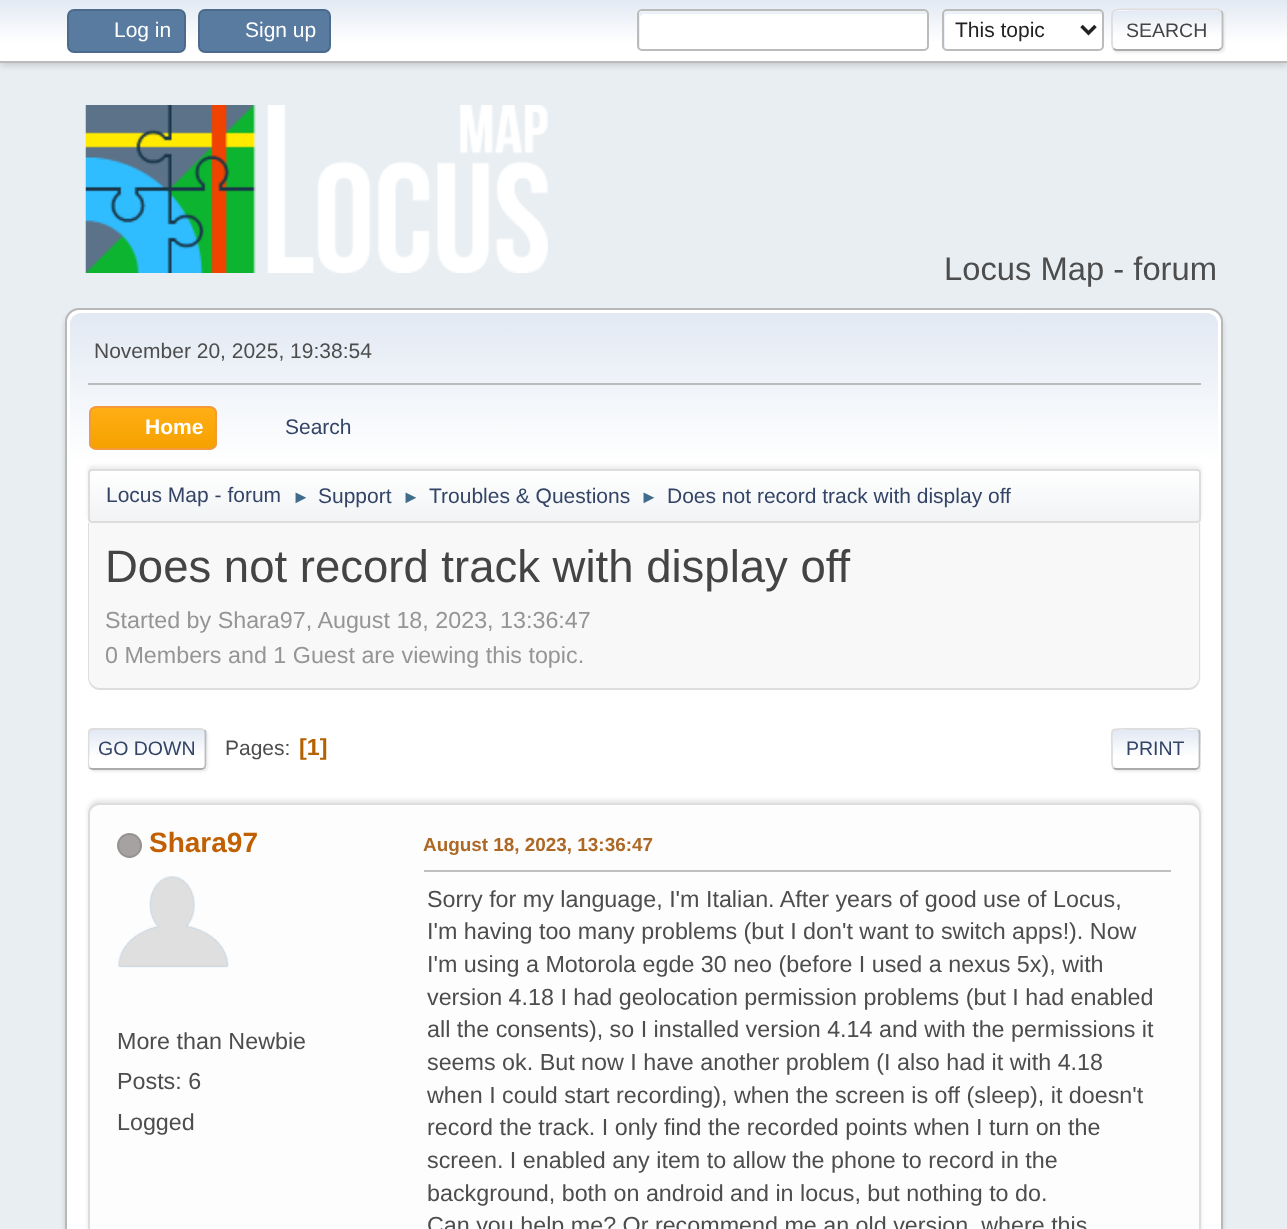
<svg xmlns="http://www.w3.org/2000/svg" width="1287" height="1229">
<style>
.a{font:21px Liberation Sans;fill:#fff}
.b{font:21px Liberation Sans;fill:#222}
.c{font:19.5px Liberation Sans;fill:#444}
.d{font:32.75px Liberation Sans;fill:#4d4d4d}
.e{font:21px Liberation Sans;fill:#4d4d4d}
.f{font:bold 21px Liberation Sans;fill:#fff}
.g{font:21px Liberation Sans;fill:#346}
.h{font:18px Liberation Sans;fill:#3f6b8c}
.i{font:45.5px Liberation Sans;fill:#444}
.j{font:23.3px Liberation Sans;fill:#959595}
.k{font:19.5px Liberation Sans;fill:#346}
.l{font:bold 23.3px Liberation Sans;fill:#b46100}
.m{font:bold 28px Liberation Sans;fill:#c06002}
.n{font:23.3px Liberation Sans;fill:#4d4d4d}
.o{font:bold 18.9px Liberation Sans;fill:#ad6825}
</style>
<defs>
<linearGradient id="g1" gradientUnits="userSpaceOnUse" x1="644" y1="0" x2="644" y2="61"><stop offset="0" stop-color="#e2e9f3"/><stop offset="0.7" stop-color="#fff"/></linearGradient>
<clipPath id="clip1"><rect x="1111" y="9" width="112" height="42" rx="5"/></clipPath>
<linearGradient id="g2" gradientUnits="userSpaceOnUse" x1="1167" y1="-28" x2="1167" y2="11"><stop offset="0" stop-color="#e2e9f3"/><stop offset="0.7" stop-color="#fff"/></linearGradient>
<linearGradient id="g3" gradientUnits="userSpaceOnUse" x1="1167" y1="10" x2="1167" y2="49"><stop offset="0" stop-color="#e2e9f3"/><stop offset="0.7" stop-color="#fff"/></linearGradient>
<linearGradient id="g4" gradientUnits="userSpaceOnUse" x1="1167" y1="49" x2="1167" y2="88"><stop offset="0" stop-color="#e2e9f3"/><stop offset="0.7" stop-color="#fff"/></linearGradient>
<linearGradient id="g5" gradientUnits="userSpaceOnUse" x1="644" y1="313" x2="644" y2="527"><stop offset="0" stop-color="#e2e9f3"/><stop offset="0.7" stop-color="#fff"/></linearGradient>
<clipPath id="clip2"><rect x="89" y="406" width="128" height="44" rx="7"/></clipPath>
<linearGradient id="g6" gradientUnits="userSpaceOnUse" x1="153" y1="408" x2="153" y2="448"><stop offset="0" stop-color="#ffae14"/><stop offset="1" stop-color="#f5a100"/></linearGradient>
<clipPath id="clip3"><rect x="88" y="469" width="1113" height="54" rx="4"/></clipPath>
<linearGradient id="g7" gradientUnits="userSpaceOnUse" x1="644" y1="471" x2="644" y2="522"><stop offset="0" stop-color="#fff"/><stop offset="0.95" stop-color="#f1f3f5"/></linearGradient>
<clipPath id="clip4"><rect x="88" y="728" width="119" height="42" rx="5"/></clipPath>
<linearGradient id="g8" gradientUnits="userSpaceOnUse" x1="147" y1="730" x2="147" y2="768"><stop offset="0" stop-color="#e2e9f3"/><stop offset="0.7" stop-color="#fff"/></linearGradient>
<linearGradient id="g9" gradientUnits="userSpaceOnUse" x1="147" y1="768" x2="147" y2="807"><stop offset="0" stop-color="#e2e9f3"/><stop offset="0.7" stop-color="#fff"/></linearGradient>
<clipPath id="clip5"><path d="M88 716h1113v66H88z"/></clipPath>
<clipPath id="clip6"><path d="M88 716h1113v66H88z"/></clipPath>
<clipPath id="clip7"><rect x="1111" y="728" width="90" height="42" rx="5"/></clipPath>
<linearGradient id="g10" gradientUnits="userSpaceOnUse" x1="1156" y1="730" x2="1156" y2="768"><stop offset="0" stop-color="#e2e9f3"/><stop offset="0.7" stop-color="#fff"/></linearGradient>
<linearGradient id="g11" gradientUnits="userSpaceOnUse" x1="1156" y1="768" x2="1156" y2="807"><stop offset="0" stop-color="#e2e9f3"/><stop offset="0.7" stop-color="#fff"/></linearGradient>
</defs>
<rect width="100%" height="100%" fill="#e9eef2"/>
<path fill="#00000029" filter="blur(3.5px)" d="M0 2h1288v63H0z"/>
<path fill="url(#g1)" d="M0 0h1287v61H0z"/>
<path fill="#bbb" d="M0 61h1287v2H0z"/>
<rect fill="#597b9f" stroke="#4a6b8c" stroke-width="2" x="68" y="10" width="117" height="42" rx="6"/>
<rect fill="#597b9f" stroke="#4a6b8c" stroke-width="2" x="199" y="10" width="131" height="42" rx="6"/>
<rect fill="#fff" x="637" y="9" width="292" height="42" rx="5"/>
<path fill="#ecf1f8" d="M644 14h282l2 1c0-2-2-4-4-4h-281c-2 0-4 2-4 4v30c0 1 0 2 1 3v-30c0-2 2-4 4-4z"/>
<rect fill="none" stroke="#bbb" stroke-width="2" x="638" y="10" width="290" height="40" rx="4"/>
<rect fill="#fff" x="942" y="9" width="162" height="42" rx="5"/>
<path fill="#ecf1f8" d="M948 14h153l2 1c0-2-2-4-4-4h-152c-2 0-4 2-4 4v30c0 1 1 3 2 3v-30c0-2 2-4 3-4z"/>
<rect fill="none" stroke="#bbb" stroke-width="2" x="943" y="10" width="160" height="40" rx="4"/>
<path fill="none" stroke="#222" stroke-width="3.5" d="M1081.5 26l7 7l7-7"/>
<rect fill="#dddddd91" filter="blur(1px)" x="1113" y="11" width="112" height="42" rx="5"/>
<g clip-path="url(#clip1)">
<path fill="url(#g2)" d="M1111 9h112v2H1111z"/>
<path fill="url(#g3)" d="M1111 11h112v38H1111z"/>
<path fill="url(#g4)" d="M1111 49h112v2H1111z"/>
</g>
<path fill="none" stroke="#bbb" stroke-width="1.8" d="M1221 11c1 .5 1.5 2 1.5 3v31.5c0 1-.5 2.5-1.5 3"/>
<path fill="none" stroke="#aaa" stroke-width="1.8" d="M1221 48.5l-2.5 1.5h-102.5l-2.5-1.5"/>
<path fill="none" stroke="#ddd" stroke-width="1.8" d="M1113.5 48.5c-2-2-1.5-6-1.5-8.5v-10c0-24-3.5-20.5 21.5-20.5h84.5l3 1.5"/>
<image href="1.png" x="85" y="105" width="463" height="168"/>
<rect fill="#00000024" filter="blur(2.5px)" x="65" y="312" width="1158" height="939" rx="14"/>
<rect fill="#fff" stroke="#b8b8b8" stroke-width="2" x="66" y="309" width="1156" height="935" rx="13"/>
<path fill="url(#g5)" d="M81 313h1126c6 0 11 5 11 11v203h-1148v-203c0-6 5-11 11-11z"/>
<path fill="#bbb" d="M88 383h1113v2H88z"/>
<g clip-path="url(#clip2)">
<path fill="url(#g6)" d="M89 408h128v40H89z"/>
</g>
<rect fill="none" stroke="#f49a3a" stroke-width="2" x="90" y="407" width="126" height="42" rx="6"/>
<rect fill="#00000014" filter="blur(2px)" x="88" y="466" width="1113" height="54" rx="4"/>
<g clip-path="url(#clip3)">
<path fill="url(#g7)" d="M88 471h1113v51H88z"/>
</g>
<rect fill="none" stroke="#ddd" stroke-width="2" x="89" y="470" width="1111" height="52" rx="3"/>
<path fill="#f8f8f8" d="M88 523h1113v155c0 6.5-5.5 12-12 12h-1089c-6.5 0-12-5.5-12-12z"/>
<path fill="#ddd" fill-rule="evenodd" d="M88 523h1112v154c0 7-5 13-12 13h-1088c-7 0-12-6-12-13zm1 0h1110v154c0 6-5 11-11 11h-1088c-6 0-11-5-11-11z"/>
<rect fill="#dddddd91" filter="blur(1px)" x="89" y="730" width="119" height="42" rx="5"/>
<rect fill="#fff" x="88" y="728" width="119" height="42" rx="5"/>
<g clip-path="url(#clip4)">
<path fill="url(#g8)" d="M88 730h119v38H88z"/>
<path fill="url(#g9)" d="M88 768h119v2H88z"/>
</g>
<path fill="none" stroke="#bbb" stroke-width="1.8" d="M204.5 730c.5 1 1 2 1 3v32c0 1-.5 2-1 3"/>
<path fill="none" stroke="#aaa" stroke-width="1.8" d="M204.5 768c-1 .5-2 1-3.5 1h-108c-1.5 0-2.5-.5-3.5-1"/>
<g clip-path="url(#clip5)">
<path fill="none" stroke="#ddd" stroke-width="1.8" d="M89.5 768c-2.5-3-1-10.5-1-14v-15.5c0-3.5-1-9.5 4.5-9.5h108l3.5 1"/>
</g>
<g clip-path="url(#clip6)">
<rect fill="#dddddd91" filter="blur(1px)" x="1113" y="730" width="89" height="42" rx="5"/>
</g>
<rect fill="#fff" x="1111" y="728" width="90" height="42" rx="5"/>
<g clip-path="url(#clip7)">
<path fill="url(#g10)" d="M1111 730h90v38H1111z"/>
<path fill="url(#g11)" d="M1111 768h90v2H1111z"/>
</g>
<path fill="none" stroke="#bbb" stroke-width="1.8" d="M1198.5 730c.5 1 1 2 1 3v32c0 1-.5 2-1 3"/>
<path fill="none" stroke="#aaa" stroke-width="1.8" d="M1198.5 768l-3 1h-79.5l-2.5-1"/>
<path fill="none" stroke="#ddd" stroke-width="1.8" d="M1113.5 768c-2-2-1.5-6-1.5-8.5v-10.5c0-22-4-20 17.5-20h52.5c1.5 0 13-2 16.5 1"/>
<rect fill="#0000001a" filter="blur(2px)" x="88" y="800" width="1113" height="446" rx="11"/>
<rect fill="#fdfdfd" stroke="#ddd" stroke-width="2" x="89" y="804" width="1111" height="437" rx="10"/>
<circle fill="#a7a2a2" stroke="#969292" stroke-width="2" cx="129.5" cy="845.5" r="11.5"/>
<image href="2.png" x="118" y="876" width="111" height="92"/>
<path fill="#bfbfbf" d="M424 870h747v2H424z"/>
<text class="a" x="114" y="37">Log in</text>
<text class="a" x="245" y="37">Sign up</text>
<text class="b" x="955" y="37">This topic</text>
<text class="c" x="1126" y="37">SEARCH</text>
<text class="d" x="944" y="280">Locus Map - forum</text>
<text class="e" x="94" y="358">November 20, 2025, 19:38:54</text>
<text class="f" x="145" y="434">Home</text>
<text class="g" x="285" y="434">Search</text>
<text class="g" x="106" y="502">Locus Map - forum</text>
<text class="h" x="292" y="503">►</text>
<text class="g" x="318" y="503">Support</text>
<text class="h" x="402" y="503">►</text>
<text class="g" x="429" y="503">Troubles &amp; Questions</text>
<text class="h" x="640" y="503">►</text>
<text class="g" x="667" y="503">Does not record track with display off</text>
<text class="i" x="105" y="582">Does not record track with display off</text>
<text class="j" x="105" y="628">Started by Shara97, August 18, 2023, 13:36:47</text>
<text class="j" x="105" y="663">0 Members and 1 Guest are viewing this topic.</text>
<text class="k" x="98" y="755">GO DOWN</text>
<text class="e" x="225" y="755">Pages:</text>
<text class="l" x="299" y="755">[1]</text>
<text class="k" x="1126" y="755">PRINT</text>
<text class="m" x="149" y="852">Shara97</text>
<text class="n" x="117" y="1049">More than Newbie</text>
<text class="n" x="117" y="1089">Posts: 6</text>
<text class="n" x="117" y="1130">Logged</text>
<text class="o" x="423" y="851">August 18, 2023, 13:36:47</text>
<text class="n" x="427" y="907">Sorry for my language, I'm Italian. After years of good use of Locus,</text>
<text class="n" x="427" y="939">I'm having too many problems (but I don't want to switch apps!). Now</text>
<text class="n" x="427" y="972">I'm using a Motorola egde 30 neo (before I used a nexus 5x), with</text>
<text class="n" x="427" y="1005">version 4.18 I had geolocation permission problems (but I had enabled</text>
<text class="n" x="427" y="1037">all the consents), so I installed version 4.14 and with the permissions it</text>
<text class="n" x="427" y="1070">seems ok. But now I have another problem (I also had it with 4.18</text>
<text class="n" x="427" y="1103">when I could start recording), when the screen is off (sleep), it doesn't</text>
<text class="n" x="427" y="1135">record the track. I only find the recorded points when I turn on the</text>
<text class="n" x="427" y="1168">screen. I enabled any item to allow the phone to record in the</text>
<text class="n" x="427" y="1201">background, both on android and in locus, but nothing to do.</text>
<text class="n" x="427" y="1233">Can you help me? Or recommend me an old version, where this</text>
</svg>
